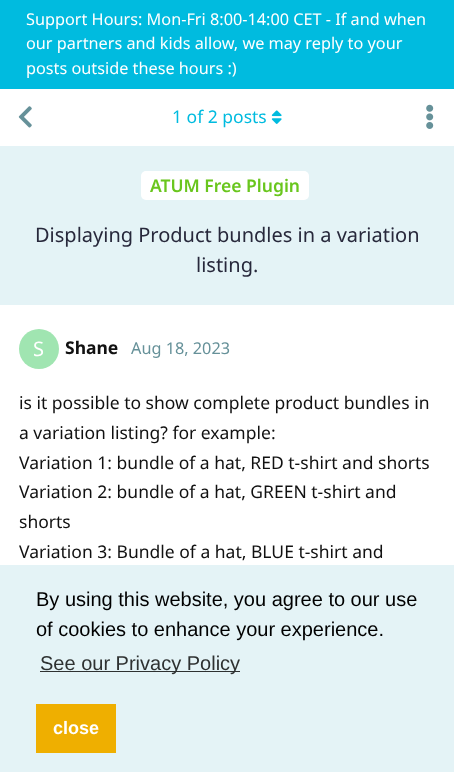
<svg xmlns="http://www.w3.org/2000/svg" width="454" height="772">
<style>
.a{font:16.25px Noto Sans;fill:#fff}
.b{font:17.5px Noto Sans;fill:#00bbdf}
.c{font:20px Noto Sans;fill:#fff}
.d{font:bold 17.5px Noto Sans;fill:#111}
.e{font:16.25px Noto Sans;fill:#669199}
.f{font:17.5px Noto Sans;fill:#111}
.g{font:600 17.5px Noto Sans;fill:#69c61d}
.h{font:20px Noto Sans;fill:#27283b}
.i{font:20px Liberation Sans;fill:#000}
.j{font:20px Liberation Sans;fill:#2e3131}
.k{font:bold 18px Liberation Sans;fill:#fff}
</style>
<rect width="100%" height="100%" fill="#fff"/>
<path fill="#00bbdf" d="M0 0h454v89H0z"/>
<image href="1.png" x="18" y="106" width="14" height="22"/>
<image href="2.png" x="271" y="110" width="11" height="14"/>
<image href="3.png" x="426" y="104" width="8" height="25"/>
<circle fill="#a0e5b1" cx="39" cy="349" r="20"/>
<path fill="#e4f3f6" d="M0 146h454v159H0z"/>
<rect fill="#fff" x="141" y="171" width="168" height="29" rx="5"/>
<path fill="#e4f3f6" d="M0 565h454v207H0z"/>
<path fill="#2e3131" d="M40 671h200v1H40z"/>
<path fill="#efaf00" d="M36 704h80v49H36z"/>
<text class="a" x="26" y="25">Support Hours: Mon-Fri 8:00-14:00 CET - If and when</text>
<text class="a" x="26" y="49">our partners and kids allow, we may reply to your</text>
<text class="a" x="26" y="74">posts outside these hours :)</text>
<text class="b" x="172" y="123">1 of 2 posts</text>
<text class="c" x="33" y="356">S</text>
<text class="d" x="65" y="354">Shane</text>
<text class="e" x="131" y="354">Aug 18, 2023</text>
<text class="f" x="19" y="409">is it possible to show complete product bundles in</text>
<text class="f" x="19" y="439">a variation listing? for example:</text>
<text class="f" x="19" y="469">Variation 1: bundle of a hat, RED t-shirt and shorts</text>
<text class="f" x="19" y="498">Variation 2: bundle of a hat, GREEN t-shirt and</text>
<text class="f" x="19" y="528">shorts</text>
<text class="f" x="19" y="558">Variation 3: Bundle of a hat, BLUE t-shirt and</text>
<text class="g" x="150" y="192">ATUM Free Plugin</text>
<text class="h" x="35" y="242">Displaying Product bundles in a variation</text>
<text class="h" x="196" y="272">listing.</text>
<text class="i" x="36" y="606">By using this website, you agree to our use</text>
<text class="i" x="36" y="636">of cookies to enhance your experience.</text>
<text class="j" x="40" y="670">See our Privacy Policy</text>
<text class="k" x="53" y="734">close</text>
</svg>
